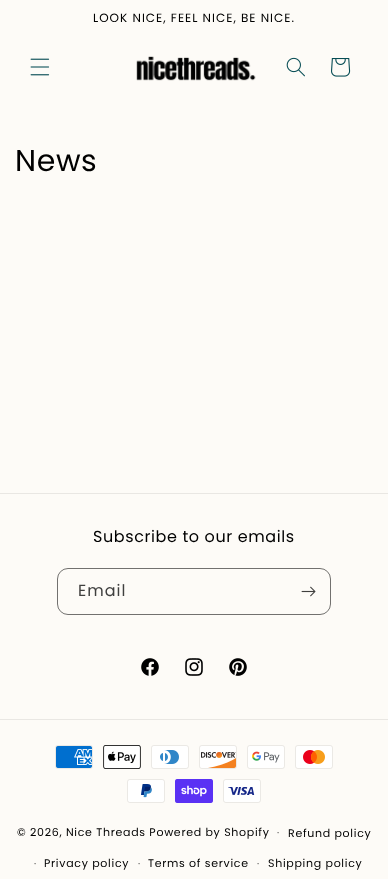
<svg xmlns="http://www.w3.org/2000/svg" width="388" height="879">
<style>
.a{font:12px Poppins;letter-spacing:1px;fill:#000}
.b{font:30px Poppins;letter-spacing:0.6px;fill:#000}
.c{font:16px Poppins;letter-spacing:0.6px;fill:#000}
.d{font:16px Poppins;letter-spacing:1px;fill:#3f3f3e}
.e{font:11px Poppins;letter-spacing:0.7px;fill:#000}
.f{font:10px Poppins;letter-spacing:0.7px;fill:#3f3f3e}
</style>
<rect width="100%" height="100%" fill="#fdfbf7"/>
<image href="1.png" x="30" y="58" width="20" height="18"/>
<image href="2.png" x="136" y="56" width="120" height="25"/>
<image href="3.png" x="286" y="57" width="19" height="20"/>
<image href="4.png" x="331" y="58" width="20" height="19"/>
<path fill="#e9e7e3" d="M0 493h388v1H0z"/>
<rect fill="none" stroke="#72716f" x="57.5" y="568.5" width="273" height="46" rx="10.5"/>
<image href="5.png" x="301" y="586" width="15" height="11"/>
<image href="6.png" x="141" y="658" width="18" height="18"/>
<image href="7.png" x="185" y="658" width="18" height="18"/>
<image href="8.png" x="229" y="658" width="18" height="18"/>
<path fill="#e9e7e3" d="M0 719h388v1H0z"/>
<image href="9.png" x="55" y="745" width="38" height="24"/>
<image href="10.png" x="103" y="745" width="38" height="24"/>
<image href="11.png" x="151" y="745" width="38" height="24"/>
<image href="12.png" x="199" y="745" width="38" height="24"/>
<image href="13.png" x="247" y="745" width="38" height="24"/>
<image href="14.png" x="295" y="745" width="38" height="24"/>
<image href="15.png" x="127" y="779" width="38" height="24"/>
<image href="16.png" x="175" y="779" width="38" height="24"/>
<image href="17.png" x="223" y="779" width="38" height="24"/>
<text class="a" x="93" y="22">LOOK NICE, FEEL NICE, BE NICE.</text>
<text class="b" x="15" y="171">News</text>
<text class="c" x="93" y="542">Subscribe to our emails</text>
<text class="d" x="78" y="596">Email</text>
<text class="e" x="17" y="836">© 2026, Nice Threads Powered by Shopify</text>
<text class="f" x="277" y="836">·</text>
<text class="e" x="288" y="837">Refund policy</text>
<text class="f" x="34" y="867">·</text>
<text class="e" x="44" y="867">Privacy policy</text>
<text class="f" x="138" y="867">·</text>
<text class="e" x="148" y="867">Terms of service</text>
<text class="f" x="257" y="867">·</text>
<text class="e" x="268" y="867">Shipping policy</text>
</svg>
